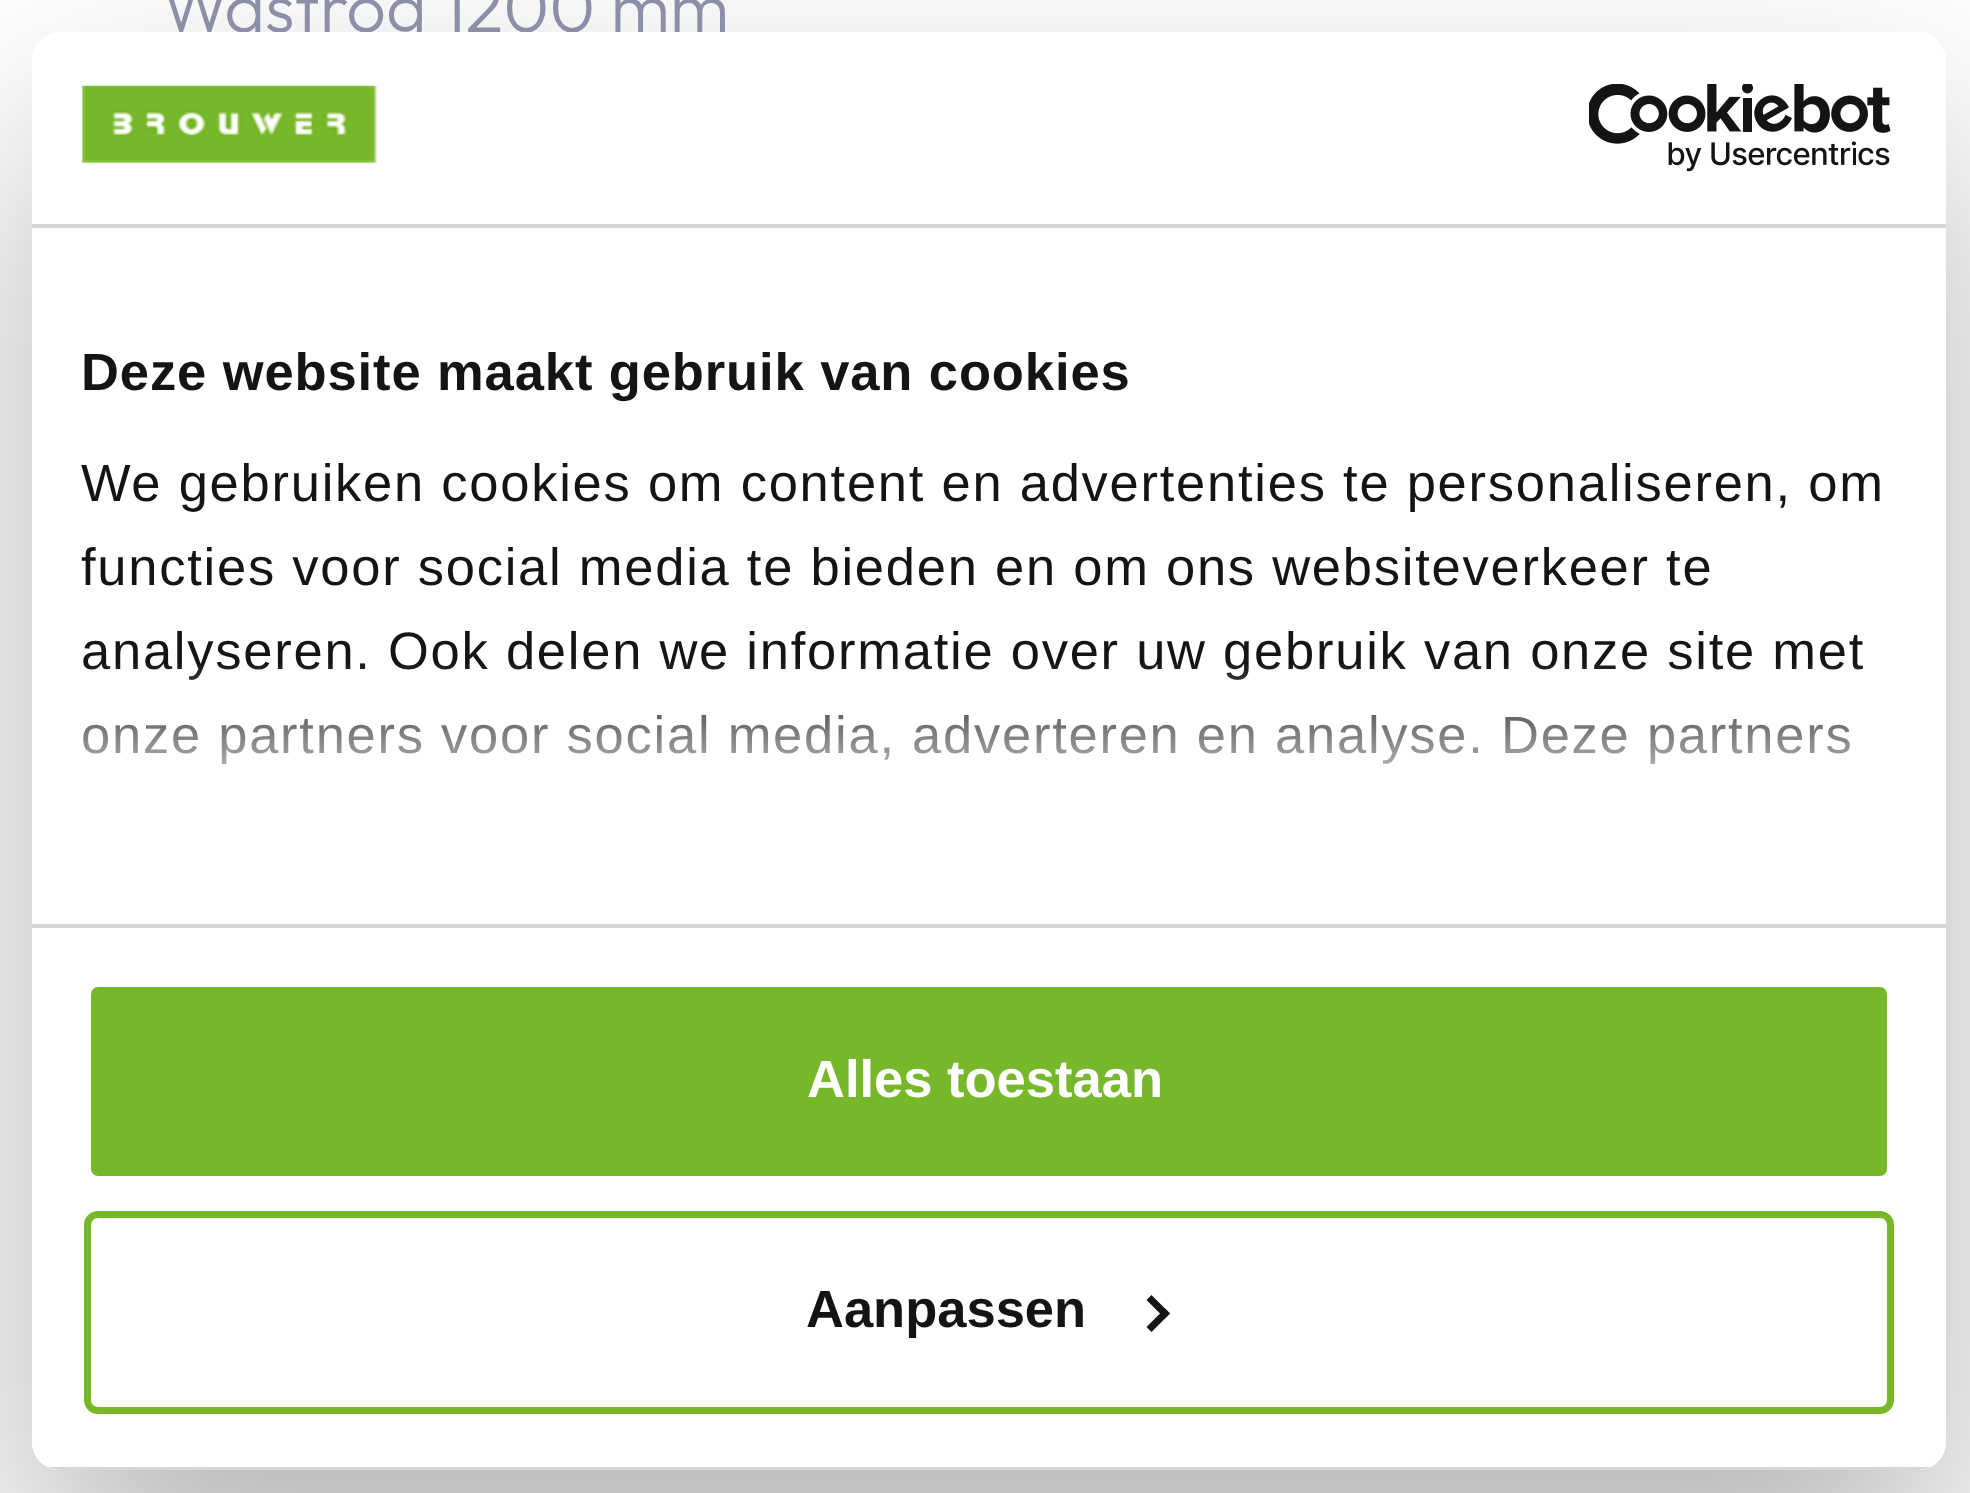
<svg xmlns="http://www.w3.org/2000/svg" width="1970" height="1493">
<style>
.a{font:300 70px Outfit;fill:#8c8fa7}
.b{font:bold 52.5px Liberation Sans;letter-spacing:0.9px;fill:#141414}
.c{font:52.5px Liberation Sans;letter-spacing:1.75px;fill:#141414}
.d{font:bold 52.5px Liberation Sans;fill:#fff}
.e{font:bold 52.5px Liberation Sans;fill:#141414}
</style>
<defs>
<clipPath id="clip1"><path d="M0 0h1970v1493h-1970zm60 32h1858c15.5 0 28 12.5 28 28v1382c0 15.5-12.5 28-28 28h-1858c-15.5 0-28-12.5-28-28v-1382c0-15.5 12.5-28 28-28z" clip-rule="evenodd"/></clipPath>
<linearGradient id="g1" gradientUnits="userSpaceOnUse" x1="964" y1="922" x2="964" y2="660"><stop offset="0" stop-color="#fff"/><stop offset="0.5" stop-color="#fff" stop-opacity="0.8"/><stop offset="1" stop-color="#fff" stop-opacity="0"/></linearGradient>
<clipPath id="clip2"><rect x="32" y="32" width="1914" height="1438" rx="28"/></clipPath>
</defs>
<rect width="100%" height="100%" fill="#fff"/>
<g clip-path="url(#clip1)">
<rect fill="#0000004d" filter="blur(119px)" x="32" y="144" width="1914" height="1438" rx="28"/>
</g>
<text class="a" x="161" y="32">Wastrog 1200 mm</text>
<rect fill="#fff" x="32" y="32" width="1914" height="1438" rx="28"/>
<path fill="#d6d6d6" d="M32 224h1914v4H32z"/>
<image href="1.png" x="81" y="85" width="296" height="79"/>
<image href="2.png" x="1589" y="84" width="302" height="88"/>
<path fill="#d6d6d6" d="M32 924h1914v4H32z"/>
<text class="b" x="81" y="390">Deze website maakt gebruik van cookies</text>
<text class="c" x="81" y="501">We gebruiken cookies om content en advertenties te personaliseren, om</text>
<text class="c" x="81" y="585">functies voor social media te bieden en om ons websiteverkeer te</text>
<text class="c" x="81" y="669">analyseren. Ook delen we informatie over uw gebruik van onze site met</text>
<text class="c" x="81" y="753">onze partners voor social media, adverteren en analyse. Deze partners</text>
<path fill="url(#g1)" d="M82 664h1781v100H82z"/>
<g clip-path="url(#clip2)">
<path fill="#d6d6d6" d="M47 1467h1884v3H47z"/>
</g>
<rect fill="#76b82a" stroke="#fff" stroke-width="7" x="87.5" y="983.5" width="1803" height="196" rx="10.5"/>
<text class="d" x="807" y="1097">Alles toestaan</text>
<rect fill="none" stroke="#76b82a" stroke-width="7" x="87.5" y="1214.5" width="1803" height="196" rx="10.5"/>
<text class="e" x="806" y="1327">Aanpassen</text>
<path fill="#141414" d="M1151.5 1295l18.5 18.5l-5 5l-18.5-18.5z"/>
<path fill="#141414" d="M1165 1308.5l5 5l-18.5 18.5l-5-5z"/>
</svg>
